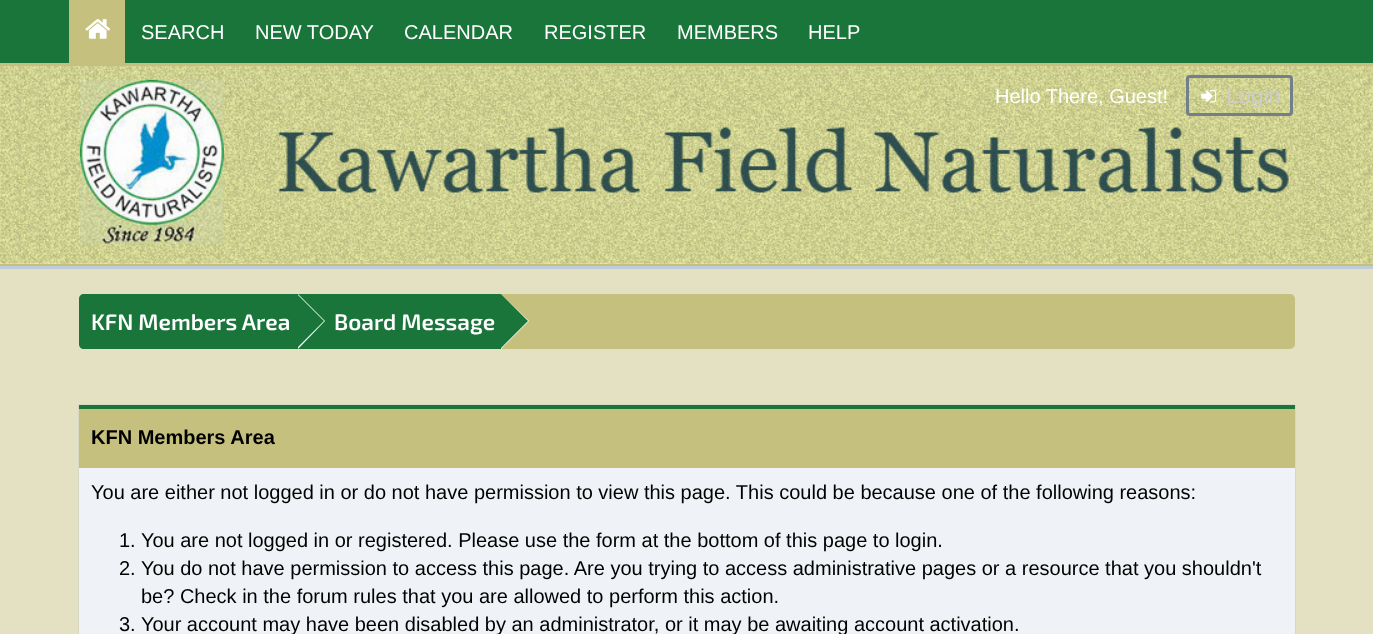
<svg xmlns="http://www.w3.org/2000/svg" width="1373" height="634">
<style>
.a{font:20px Liberation Sans;fill:#fff}
.b{font:22.5px Liberation Sans;fill:#ccc}
.c{font:600 22.5px 'Exo 2';fill:#fff}
.d{font:bold 20px Liberation Sans;fill:#000}
.e{font:20px Liberation Sans;fill:#000}
</style>
<rect width="100%" height="100%" fill="#fff"/>
<path fill="#19753a" d="M0 0h1373v63H0z"/>
<path fill="#c5c07e" d="M0 63h1373v3H0z"/>
<path fill="#c5c07e" d="M69 0h56v63H69z"/>
<image href="1.png" x="85" y="19" width="25" height="20"/>
<image href="3.png" x="0" y="66" width="1373" height="198"/>
<image href="4.png" x="76" y="77" width="1222" height="167"/>
<rect fill="none" stroke="#73808c" stroke-width="3" x="1187.5" y="76.5" width="104" height="38" rx="2.5"/>
<image href="2.png" x="1201" y="90" width="16" height="13"/>
<path fill="#c5c07e" d="M0 264h1373v2H0z"/>
<path fill="#beccda" d="M0 266h1373v3H0z"/>
<path fill="#e4e1c2" d="M0 269h1373v365H0z"/>
<rect fill="#c5c07e" x="79" y="294" width="1216" height="55" rx="5"/>
<path fill="#19753a" d="M84 294h214v55h-214c-3 0-5-2-5-5v-45c0-3 2-5 5-5z"/>
<path fill="#19753a" d="M298 294h203v55H298z"/>
<path fill="#fff" d="M298 349v-55l27 27z"/>
<path fill="#19753a" d="M297 294l27 27l-28 28h-1v-55z"/>
<path fill="#fff" d="M501 349v-55l28 27z"/>
<path fill="#19753a" d="M501 294l27 27l-28 28h-1v-55z"/>
<path fill="none" stroke="#d6d8c3" d="M78.5 404.5h1217v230H78.5z"/>
<path fill="#c5c07e" d="M79 409h1216v59H79z"/>
<path fill="#19753a" d="M79 405h1216v4H79z"/>
<path fill="#eff2f6" d="M79 468h1216v166H79z"/>
<text class="a" x="141" y="39">SEARCH</text>
<text class="a" x="255" y="39">NEW TODAY</text>
<text class="a" x="404" y="39">CALENDAR</text>
<text class="a" x="544" y="39">REGISTER</text>
<text class="a" x="677" y="39">MEMBERS</text>
<text class="a" x="808" y="39">HELP</text>
<text class="a" x="995" y="103">Hello There, Guest!</text>
<text class="b" x="1226" y="103">Login</text>
<text class="c" x="91" y="330">KFN Members Area</text>
<text class="c" x="334" y="330">Board Message</text>
<text class="d" x="91" y="444">KFN Members Area</text>
<text class="e" x="91" y="499">You are either not logged in or do not have permission to view this page. This could be because one of the following reasons:</text>
<text class="e" x="119" y="547">1. You are not logged in or registered. Please use the form at the bottom of this page to login.</text>
<text class="e" x="119" y="575">2. You do not have permission to access this page. Are you trying to access administrative pages or a resource that you shouldn't</text>
<text class="e" x="141" y="603">be? Check in the forum rules that you are allowed to perform this action.</text>
<text class="e" x="119" y="631">3. Your account may have been disabled by an administrator, or it may be awaiting account activation.</text>
</svg>
